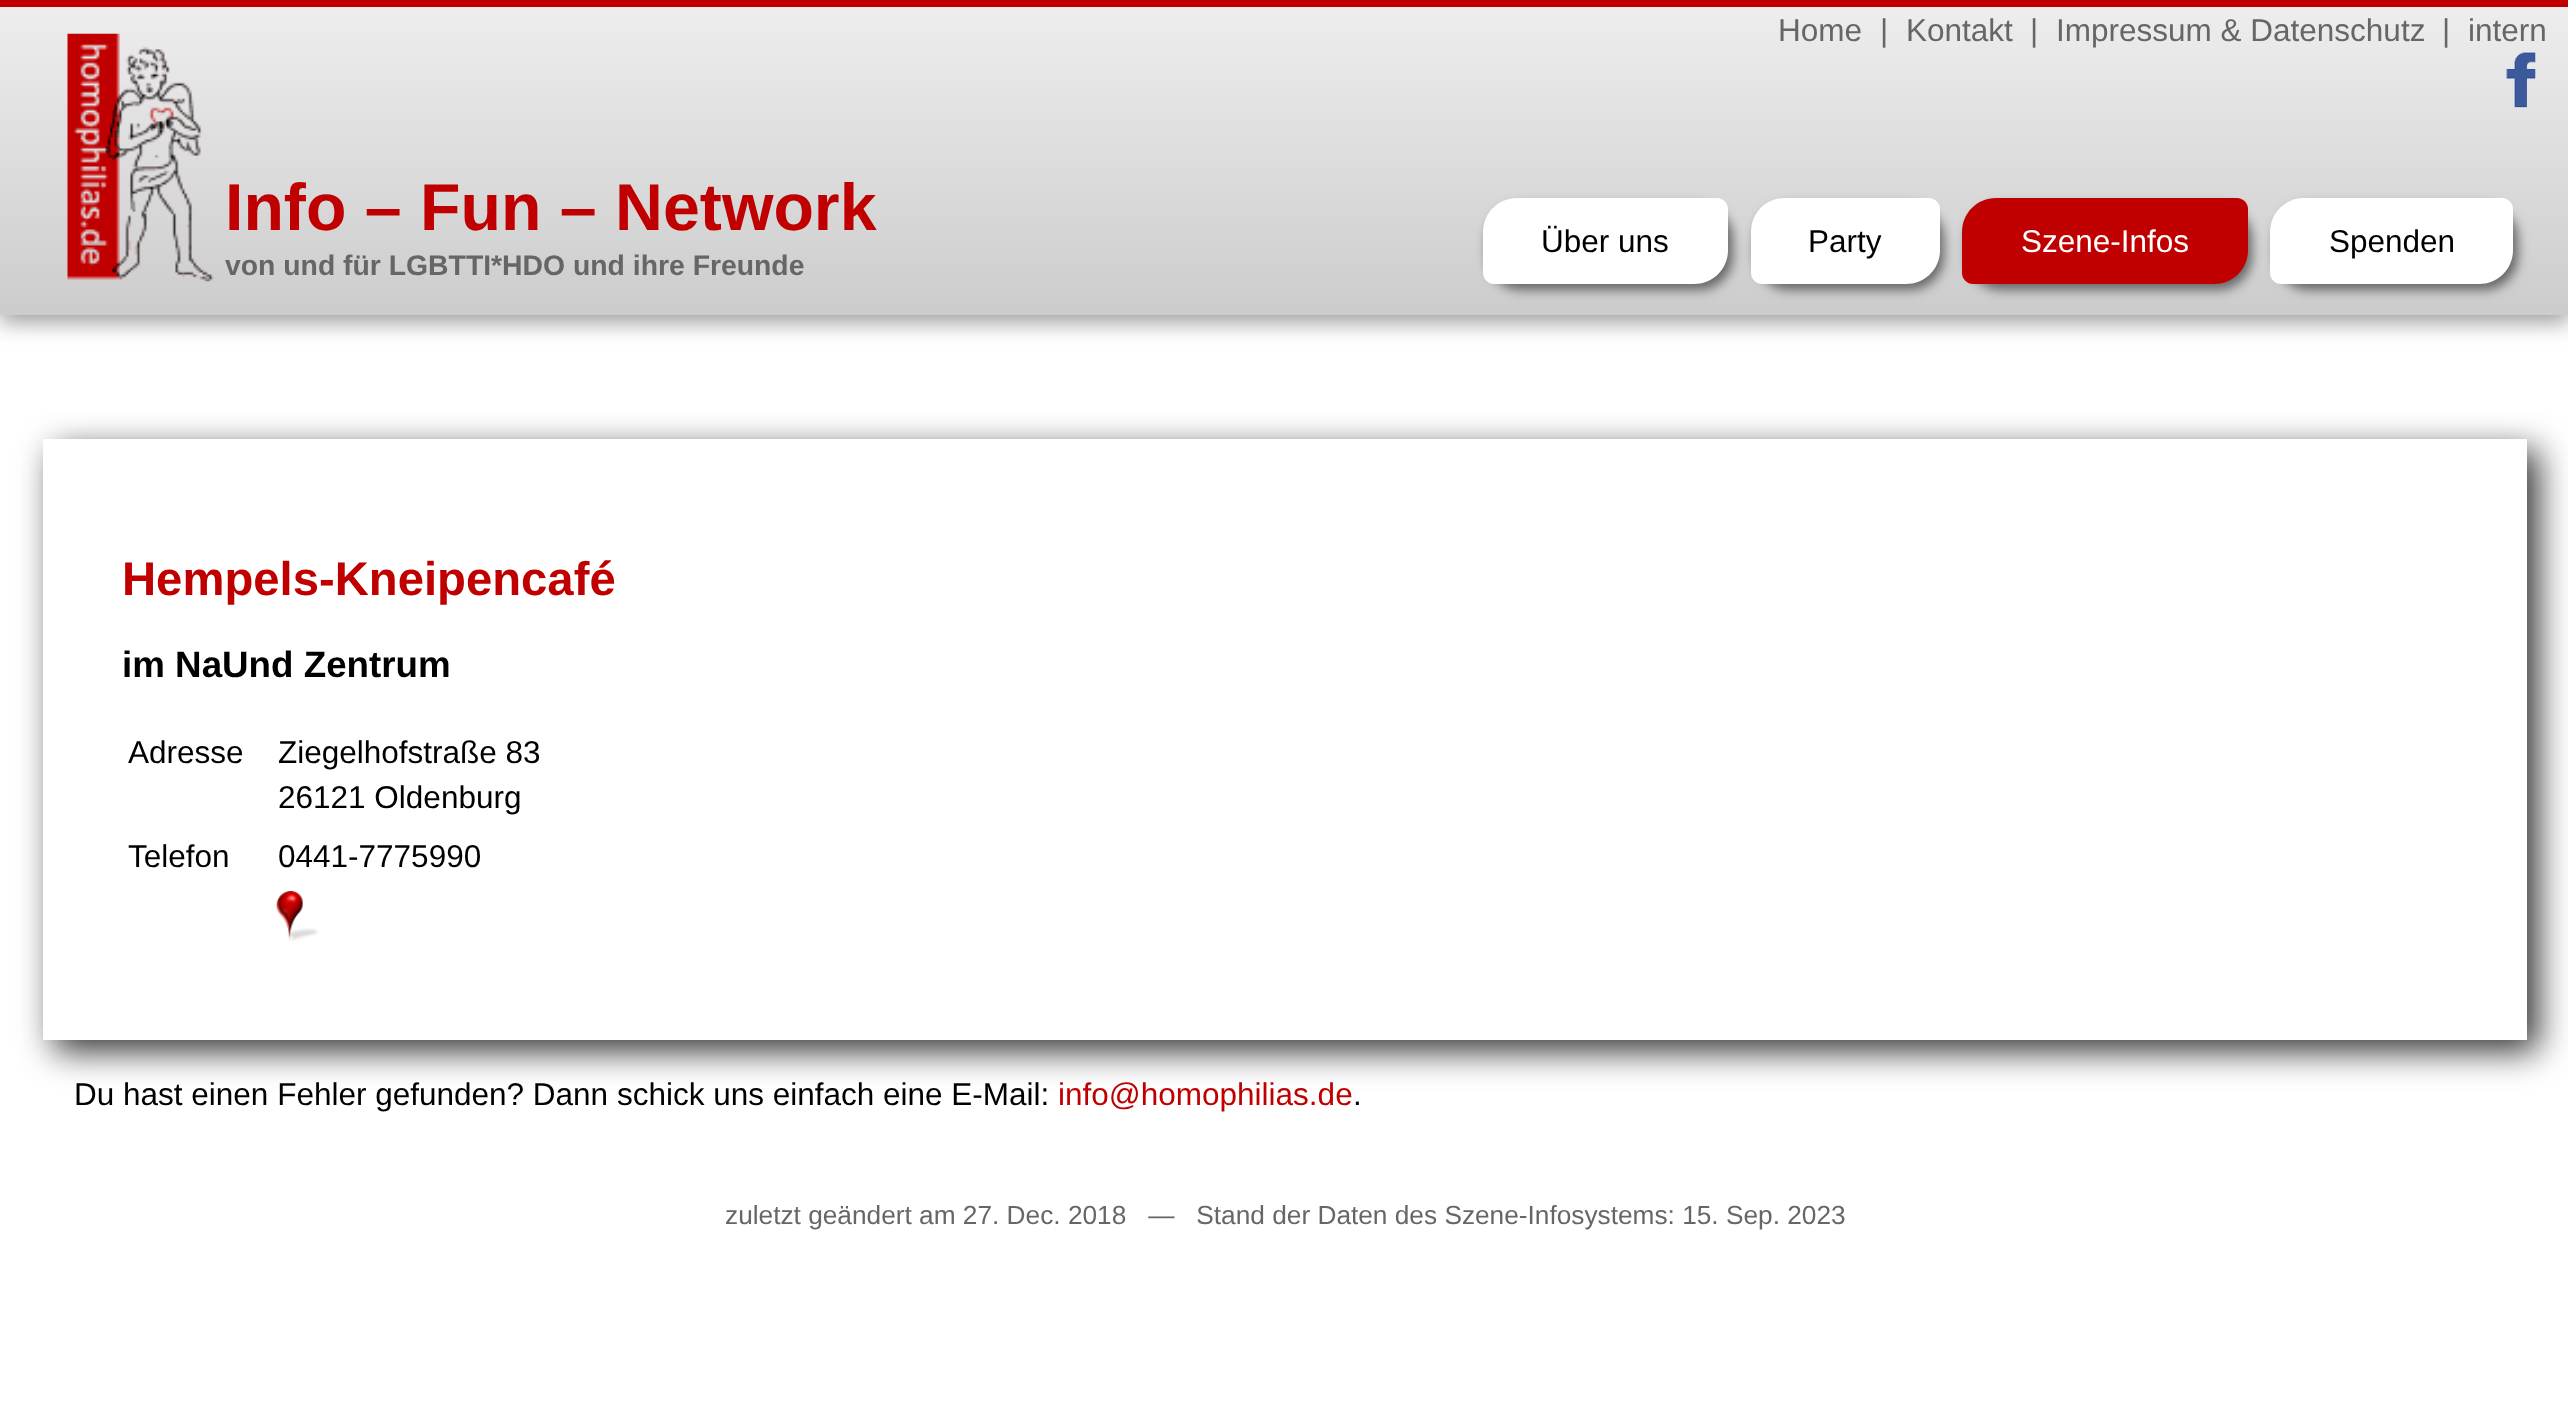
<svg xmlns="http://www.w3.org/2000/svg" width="2568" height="1420">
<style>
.a{font:31.5px Liberation Sans;fill:#666}
.b{font:bold 66.25px Liberation Sans;fill:#c00000}
.c{font:bold 28.35px Liberation Sans;fill:#666}
.d{font:31.5px Liberation Sans;fill:#000}
.e{font:31.5px Liberation Sans;fill:#fff}
.f{font:bold 47.25px Liberation Sans;fill:#c00000}
.g{font:bold 36.75px Liberation Sans;fill:#000}
.h{font:31.5px Liberation Sans;fill:#c00000}
.i{font:26.25px Liberation Sans;fill:#666}
</style>
<defs>
<linearGradient id="g1" gradientUnits="userSpaceOnUse" x1="1285" y1="0" x2="1285" y2="315"><stop offset="0" stop-color="#eee"/><stop offset="1" stop-color="#ccc"/></linearGradient>
<clipPath id="clip1"><path d="M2 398h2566v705h-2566zm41 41h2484v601h-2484z" clip-rule="evenodd"/></clipPath>
</defs>
<rect width="100%" height="100%" fill="#fff"/>
<path fill="#999" filter="blur(11px)" d="M0 7h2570v315H0z"/>
<path fill="url(#g1)" d="M0 7h2568v308H0z"/>
<path fill="#c00000" d="M0 0h2568v7H0z"/>
<image href="1.png" x="2506" y="52" width="30" height="56"/>
<image href="2.png" x="67" y="33" width="147" height="249"/>
<rect fill="#666" filter="blur(5.5px)" x="1487" y="205" width="246" height="85" rx="34"/>
<path fill="#fff" d="M1517 198h200c6 0 11 5 11 11v41c0 19-15 34-34 34h-200c-6 0-11-5-11-11v-41c0-19 15-34 34-34z"/>
<rect fill="#666" filter="blur(5.5px)" x="1755" y="205" width="189" height="85" rx="34"/>
<path fill="#fff" d="M1785 198h144c6 0 11 5 11 11v41c0 19-15 34-34 34h-144c-6 0-11-5-11-11v-41c0-19 15-34 34-34z"/>
<rect fill="#666" filter="blur(5.5px)" x="1967" y="205" width="285" height="85" rx="34"/>
<path fill="#c00000" d="M1996 198h241c6 0 11 5 11 11v41c0 19-15 34-34 34h-241c-6 0-11-5-11-11v-41c0-19 15-34 34-34z"/>
<rect fill="#666" filter="blur(5.5px)" x="2275" y="205" width="243" height="85" rx="34"/>
<path fill="#fff" d="M2304 198h198c6 0 11 5 11 11v41c0 19-15 34-34 34h-198c-6 0-11-5-11-11v-41c0-19 15-34 34-34z"/>
<g clip-path="url(#clip1)">
<path fill="#323232" filter="blur(17px)" d="M54 450h2484v601H54z"/>
</g>
<image href="3.png" x="276" y="891" width="42" height="50"/>
<text class="a" x="1778" y="41">Home</text>
<text class="a" x="1880" y="41">|</text>
<text class="a" x="1906" y="41">Kontakt</text>
<text class="a" x="2030" y="41">|</text>
<text class="a" x="2056" y="41">Impressum &amp; Datenschutz</text>
<text class="a" x="2442" y="41">|</text>
<text class="a" x="2468" y="41">intern</text>
<text class="b" x="225" y="230">Info – Fun – Network</text>
<text class="c" x="225" y="275">von und für LGBTTI*HDO und ihre Freunde</text>
<text class="d" x="1541" y="252">Über uns</text>
<text class="d" x="1808" y="252">Party</text>
<text class="e" x="2021" y="252">Szene-Infos</text>
<text class="d" x="2329" y="252">Spenden</text>
<text class="f" x="122" y="595">Hempels-Kneipencafé</text>
<text class="g" x="122" y="677">im NaUnd Zentrum</text>
<text class="d" x="128" y="763">Adresse</text>
<text class="d" x="278" y="763">Ziegelhofstraße 83</text>
<text class="d" x="278" y="808">26121 Oldenburg</text>
<text class="d" x="128" y="867">Telefon</text>
<text class="d" x="278" y="867">0441-7775990</text>
<text class="d" x="74" y="1105">Du hast einen Fehler gefunden? Dann schick uns einfach eine E-Mail:</text>
<text class="h" x="1058" y="1105">info@homophilias.de</text>
<text class="d" x="1353" y="1105">.</text>
<text class="i" xml:space="preserve" x="725" y="1224">zuletzt geändert am 27. Dec. 2018   —   Stand der Daten des Szene-Infosystems: 15. Sep. 2023</text>
</svg>
